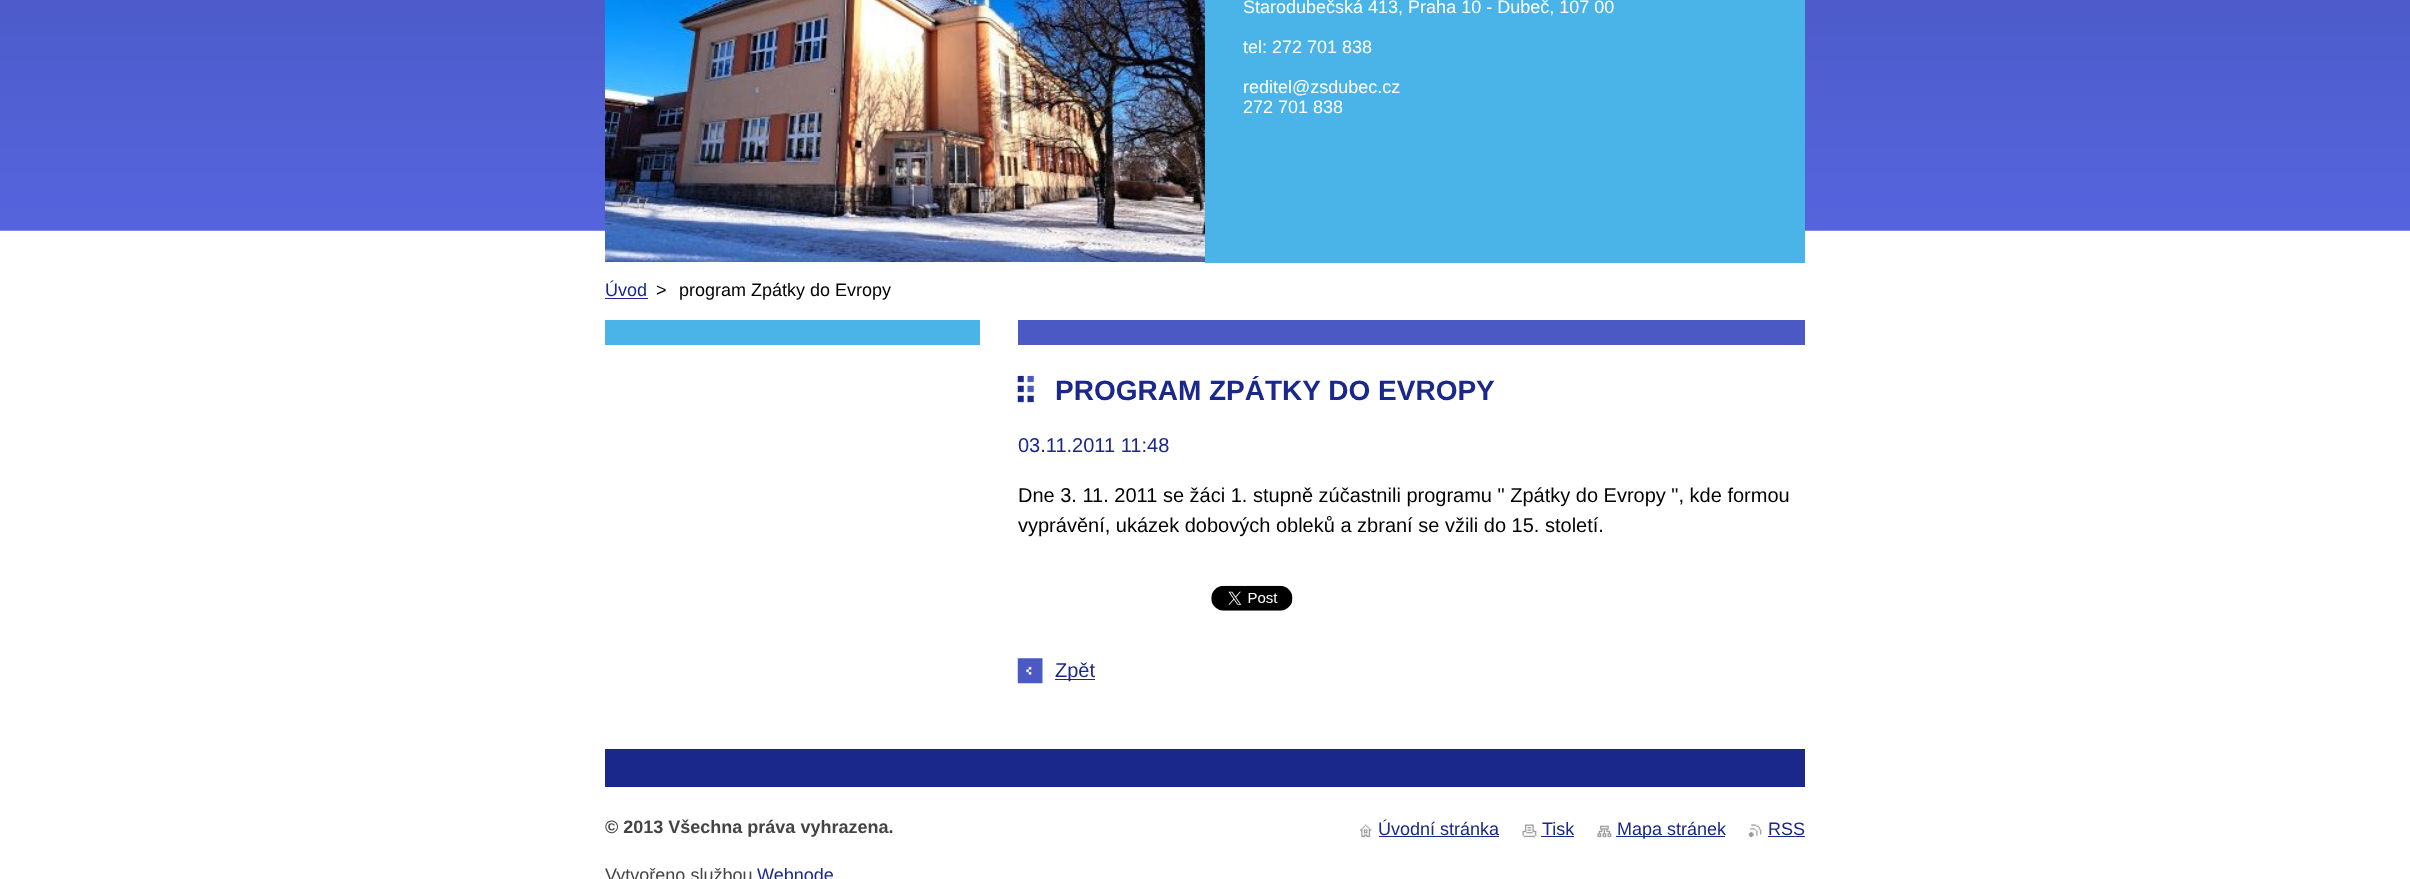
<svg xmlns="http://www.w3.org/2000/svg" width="2410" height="879">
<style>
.a{font:18px Liberation Sans;fill:#fff}
.b{font:18px Liberation Sans;fill:#1a278b}
.c{font:18px Liberation Sans;fill:#000}
.d{font:bold 28px Liberation Sans;fill:#1a278b}
.e{font:20px Liberation Sans;fill:#1a278b}
.f{font:20px Liberation Sans;fill:#000}
.g{font:bold 18px Liberation Sans;fill:#444}
.h{font:18px Liberation Sans;fill:#444}
</style>
<defs>
<clipPath id="clip1"><path d="M1018 376h787v320H1018z"/></clipPath>
</defs>
<rect width="100%" height="100%" fill="#fff"/>
<image href="1.png" x="0" y="0" width="2410" height="231"/>
<image href="2.png" x="605" y="0" width="600" height="262"/>
<path fill="#4ab4e8" d="M1205 0h600v263H1205z"/>
<path fill="#1a278b" d="M605 298h43v1H605z"/>
<path fill="#4ab4e8" d="M605 320h375v25H605z"/>
<path fill="#4b59c4" d="M1018 320h787v25H1018z"/>
<image href="3.png" x="1017" y="375" width="17" height="28"/>
<image href="4.png" x="1211" y="585" width="82" height="26"/>
<image href="5.png" x="1017" y="658" width="26" height="26"/>
<path fill="#1a278b" d="M1055 679h40v1H1055z"/>
<path fill="#1a278b" d="M605 749h1200v38H605z"/>
<image href="6.png" x="1360" y="824" width="12" height="14"/>
<path fill="#1a278b" d="M1379 836h120v1H1379z"/>
<image href="7.png" x="1522" y="824" width="15" height="14"/>
<path fill="#1a278b" d="M1541 836h33v1H1541z"/>
<image href="8.png" x="1597" y="825" width="15" height="13"/>
<path fill="#1a278b" d="M1616 836h109v1H1616z"/>
<image href="9.png" x="1748" y="824" width="14" height="13"/>
<path fill="#1a278b" d="M1768 836h37v1H1768z"/>
<text class="a" x="1243" y="13">Starodubečská 413, Praha 10 - Dubeč, 107 00</text>
<text class="a" x="1243" y="53">tel: 272 701 838</text>
<text class="a" x="1243" y="93">reditel@zsdubec.cz</text>
<text class="a" x="1243" y="113">272 701 838</text>
<text class="b" x="605" y="296">Úvod</text>
<text class="c" x="656" y="296">&gt;</text>
<text class="c" x="679" y="296">program Zpátky do Evropy</text>
<g clip-path="url(#clip1)">
<text class="d" x="1055" y="400">PROGRAM ZPÁTKY DO EVROPY</text>
</g>
<text class="e" x="1018" y="452">03.11.2011 11:48</text>
<text class="f" x="1018" y="502">Dne 3. 11. 2011 se žáci 1. stupně zúčastnili programu " Zpátky do Evropy ", kde formou</text>
<text class="f" x="1018" y="532">vyprávění, ukázek dobových obleků a zbraní se vžili do 15. století.</text>
<text class="e" x="1055" y="677">Zpět</text>
<text class="g" x="605" y="833">© 2013 Všechna práva vyhrazena.</text>
<text class="h" x="605" y="881">Vytvořeno službou</text>
<text class="b" x="757" y="881">Webnode</text>
<text class="b" x="1378" y="835">Úvodní stránka</text>
<text class="b" x="1542" y="835">Tisk</text>
<text class="b" x="1617" y="835">Mapa stránek</text>
<text class="b" x="1768" y="835">RSS</text>
</svg>
